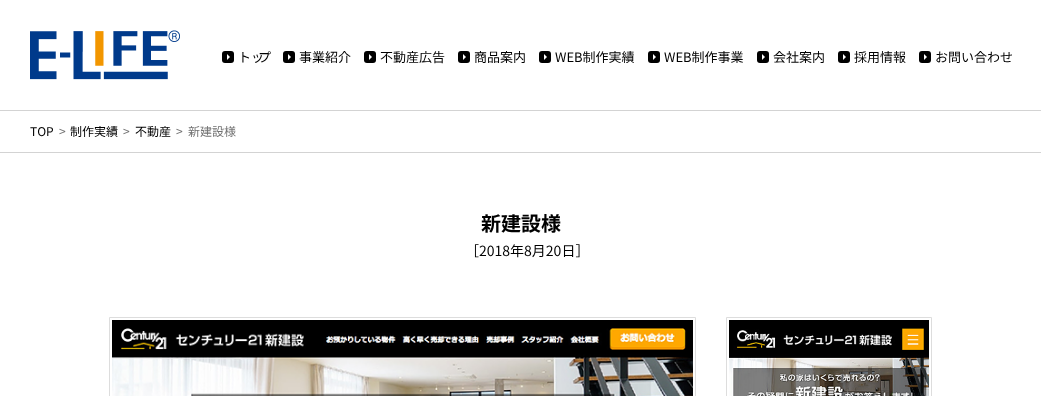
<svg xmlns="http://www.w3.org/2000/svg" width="1041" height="396">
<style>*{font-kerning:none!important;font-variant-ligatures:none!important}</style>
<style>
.a{font:13px Noto Sans JP;fill:#000}
.b{font:12px Noto Sans JP;fill:#000}
.c{font:12px Noto Sans JP;fill:#727272}
.d{font:bold 20px Noto Sans JP;fill:#000}
.e{font:14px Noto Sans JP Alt;fill:#000}
</style>
<rect width="100%" height="100%" fill="#fff"/>
<path fill="#d3d3d3" d="M0 110h1041v1H0z"/>
<image href="1.png" x="30" y="30" width="150" height="50"/>
<rect fill="#000" x="222" y="51" width="12" height="12" rx="3"/>
<path fill="#fff" d="M227 60v-6l3 3z"/>
<rect fill="#000" x="283" y="51" width="12" height="12" rx="3"/>
<path fill="#fff" d="M288 60v-6l3 3z"/>
<rect fill="#000" x="364" y="51" width="12" height="12" rx="3"/>
<path fill="#fff" d="M369 60v-6l3 3z"/>
<rect fill="#000" x="458" y="51" width="12" height="12" rx="3"/>
<path fill="#fff" d="M463 60v-6l3 3z"/>
<rect fill="#000" x="539" y="51" width="12" height="12" rx="3"/>
<path fill="#fff" d="M544 60v-6l3 3z"/>
<rect fill="#000" x="648" y="51" width="12" height="12" rx="3"/>
<path fill="#fff" d="M653 60v-6l3 3z"/>
<rect fill="#000" x="757" y="51" width="12" height="12" rx="3"/>
<path fill="#fff" d="M762 60v-6l3 3z"/>
<rect fill="#000" x="838" y="51" width="12" height="12" rx="3"/>
<path fill="#fff" d="M843 60v-6l3 3z"/>
<rect fill="#000" x="919" y="51" width="12" height="12" rx="3"/>
<path fill="#fff" d="M924 60v-6l3 3z"/>
<path fill="#d3d3d3" d="M0 152h1041v1H0z"/>
<path fill="none" stroke="#ddd" d="M109.5 317.5h586v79H109.5z"/>
<image href="2.png" x="112" y="320" width="581" height="76"/>
<path fill="none" stroke="#ddd" d="M726.5 317.5h205v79H726.5z"/>
<image href="3.png" x="729" y="320" width="200" height="76"/>
<text class="a" x="238" y="62">トッ</text>
<text class="a" x="258" y="62">プ</text>
<text class="a" x="299" y="62">事業紹介</text>
<text class="a" x="380" y="62">不動産広告</text>
<text class="a" x="474" y="62">商品案内</text>
<text class="a" x="555" y="62">WEB制作実績</text>
<text class="a" x="664" y="62">WEB制作事業</text>
<text class="a" x="773" y="62">会社案内</text>
<text class="a" x="854" y="62">採用情報</text>
<text class="a" x="935" y="62">お問い合わせ</text>
<text class="b" x="30" y="136">TOP</text>
<text class="c" x="59" y="136">&gt;</text>
<text class="b" x="70" y="136">制作実績</text>
<text class="c" x="123" y="136">&gt;</text>
<text class="b" x="135" y="136">不動産</text>
<text class="c" x="176" y="136">&gt;</text>
<text class="c" x="188" y="136">新建設様</text>
<text class="d" x="481" y="231">新建設様</text>
<text class="e" x="465" y="256">［2018年8月20日］</text>
</svg>
